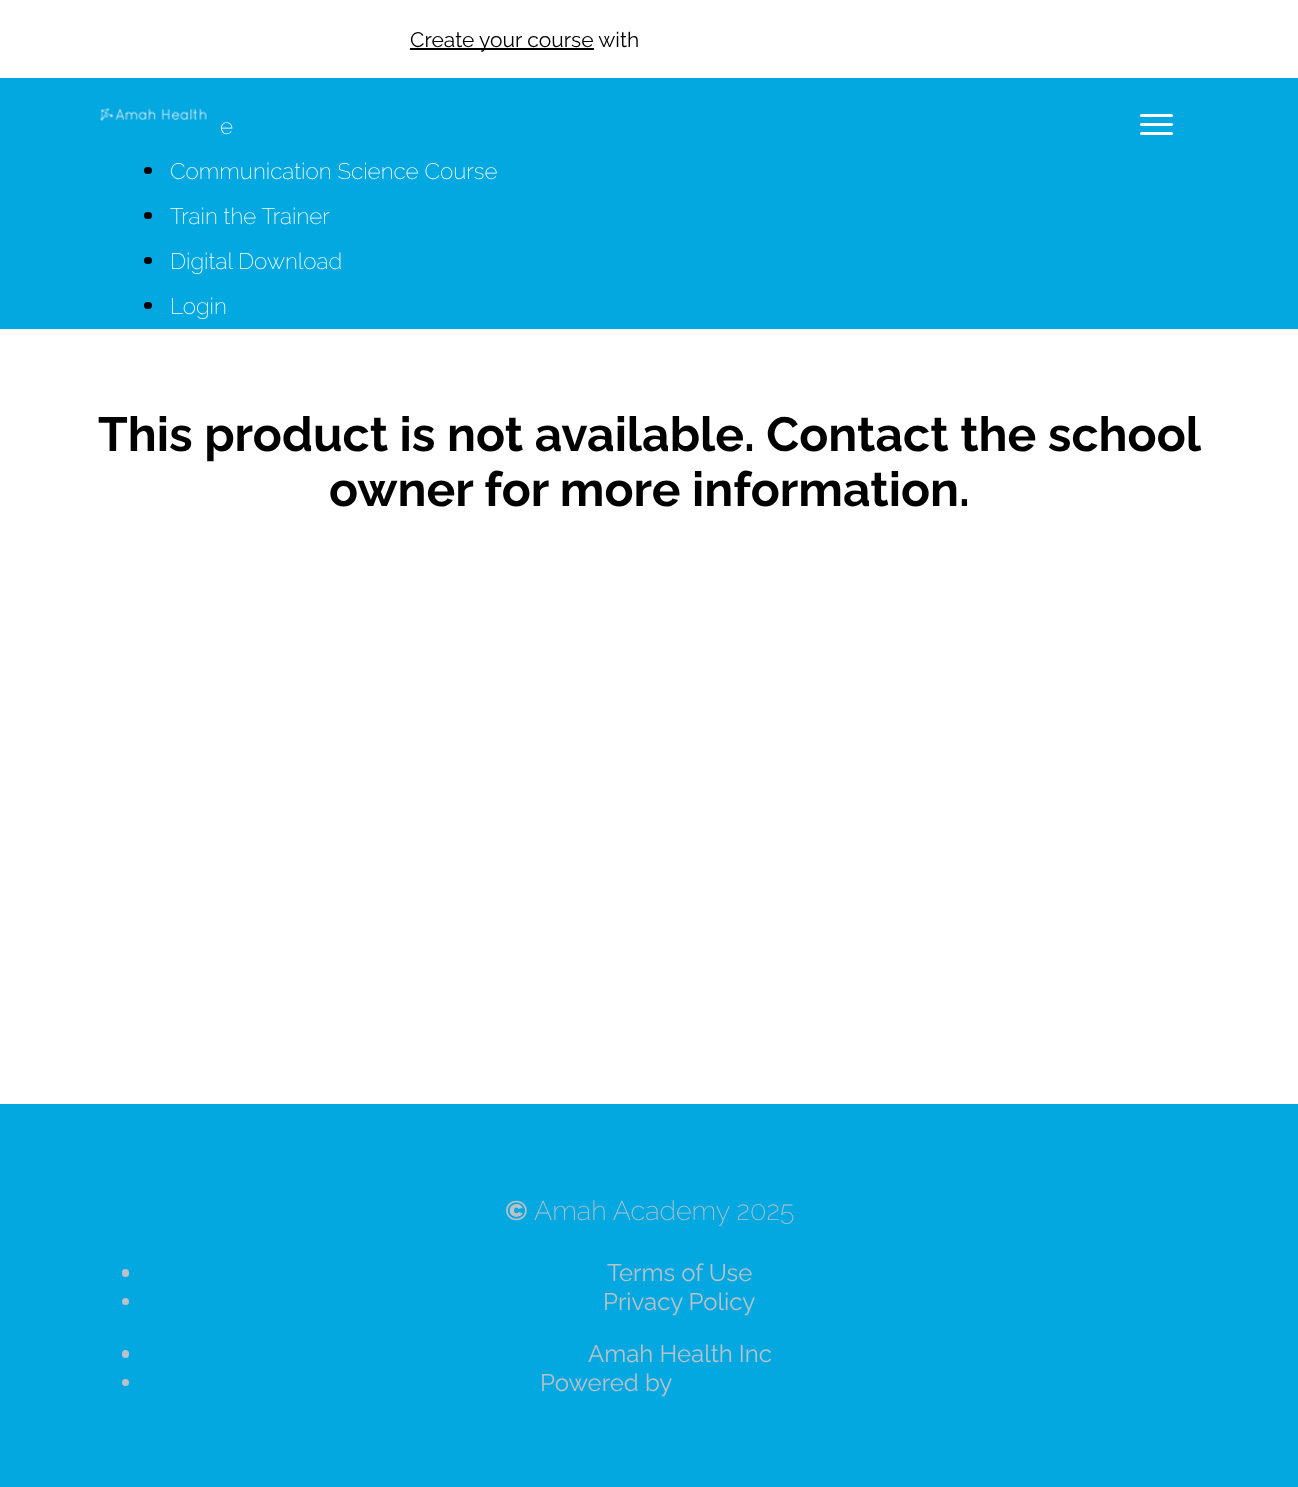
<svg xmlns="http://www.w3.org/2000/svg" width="1298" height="1487">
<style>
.a{font:21px Raleway;fill:#000}
.b{font:200 22.5px Raleway;fill:#fff}
.c{font:bold 48px Raleway;fill:#000}
.d{font:800 27px Raleway;fill:#bac1c7}
.e{font:200 27px Raleway;fill:#bac1c7}
.f{font:24px Raleway;fill:#bac1c7}
</style>
<rect width="100%" height="100%" fill="#fff"/>
<path fill="#000" d="M410 48h184v2H410z"/>
<path fill="#04a8e0" d="M0 78h1298v251H0z"/>
<image href="1.png" x="99" y="108" width="119" height="27"/>
<rect fill="#000" x="144" y="167" width="8" height="7" rx="3.5"/>
<rect fill="#000" x="144" y="212" width="8" height="7" rx="3.5"/>
<rect fill="#000" x="144" y="257" width="8" height="7" rx="3.5"/>
<rect fill="#000" x="144" y="302" width="8" height="7" rx="3.5"/>
<rect fill="#fff" x="1140" y="114" width="33" height="3" rx="1.5"/>
<rect fill="#fff" x="1140" y="123" width="33" height="3" rx="1.5"/>
<rect fill="#fff" x="1140" y="132" width="33" height="3" rx="1.5"/>
<path fill="#04a8e0" d="M0 1104h1298v383H0z"/>
<rect fill="#bac1c7" x="122" y="1269" width="7" height="8" rx="3.5"/>
<circle fill="#bac1c7" cx="125.5" cy="1301.5" r="3.5"/>
<rect fill="#bac1c7" x="122" y="1350" width="7" height="8" rx="3.5"/>
<circle fill="#bac1c7" cx="125.5" cy="1382.5" r="3.5"/>
<text class="a" x="410" y="47">Create your course with</text>
<text class="b" x="220" y="134">e</text>
<text class="b" x="170" y="179">Communication Science Course</text>
<text class="b" x="170" y="224">Train the Trainer</text>
<text class="b" x="170" y="269">Digital Download</text>
<text class="b" x="170" y="314">Login</text>
<text class="c" x="98" y="451">This product is not available. Contact the school</text>
<text class="c" x="329" y="506">owner for more information.</text>
<text class="d" x="505" y="1220">©</text>
<text class="e" x="534" y="1220">Amah Academy 2025</text>
<text class="f" x="607" y="1281">Terms of Use</text>
<text class="f" x="603" y="1310">Privacy Policy</text>
<text class="f" x="588" y="1362">Amah Health Inc</text>
<text class="f" x="540" y="1391">Powered by</text>
</svg>
